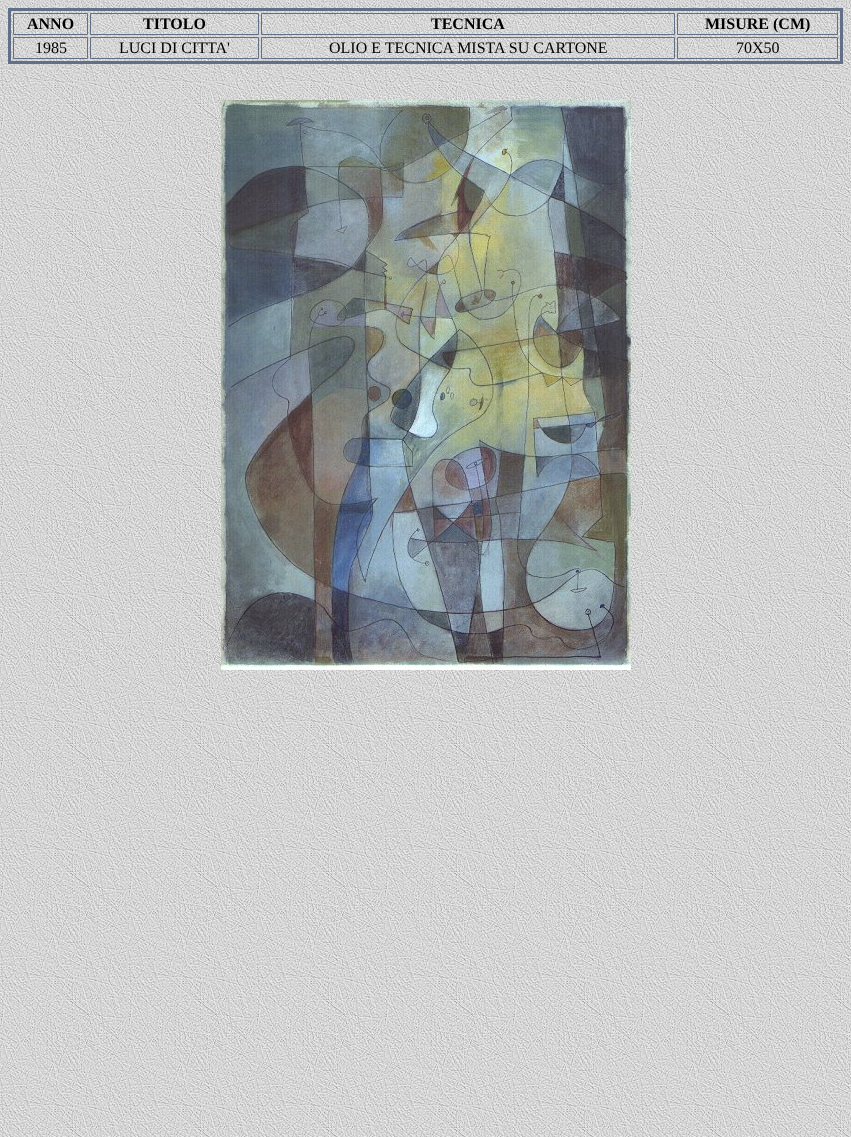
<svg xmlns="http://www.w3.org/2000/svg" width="851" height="1137">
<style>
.a{font:bold 16px Liberation Serif;fill:#000}
.b{font:16px Liberation Serif;fill:#000}
</style>
<rect width="100%" height="100%" fill="#fff"/>
<image href="1.png" x="0" y="0" width="851" height="1137"/>
<path fill="none" stroke="#617087" stroke-width="3" d="M9.5 9.5h832v53H9.5z"/>
<path fill="none" stroke="#617087" d="M13.5 13.5h74v21H13.5z"/>
<path fill="none" stroke="#617087" d="M90.5 13.5h168v21H90.5z"/>
<path fill="none" stroke="#617087" d="M261.5 13.5h413v21H261.5z"/>
<path fill="none" stroke="#617087" d="M677.5 13.5h160v21H677.5z"/>
<path fill="none" stroke="#617087" d="M13.5 37.5h74v21H13.5z"/>
<path fill="none" stroke="#617087" d="M90.5 37.5h168v21H90.5z"/>
<path fill="none" stroke="#617087" d="M261.5 37.5h413v21H261.5z"/>
<path fill="none" stroke="#617087" d="M677.5 37.5h160v21H677.5z"/>
<image href="2.png" x="221" y="100" width="410" height="570"/>
<text class="a" x="27" y="29">ANNO</text>
<text class="a" x="143" y="29">TITOLO</text>
<text class="a" x="431" y="29">TECNICA</text>
<text class="a" x="705" y="29">MISURE (CM)</text>
<text class="b" x="35" y="53">1985</text>
<text class="b" x="119" y="53">LUCI DI CITTA'</text>
<text class="b" x="329" y="53">OLIO E TECNICA MISTA SU CARTONE</text>
<text class="b" x="736" y="53">70X50</text>
</svg>
